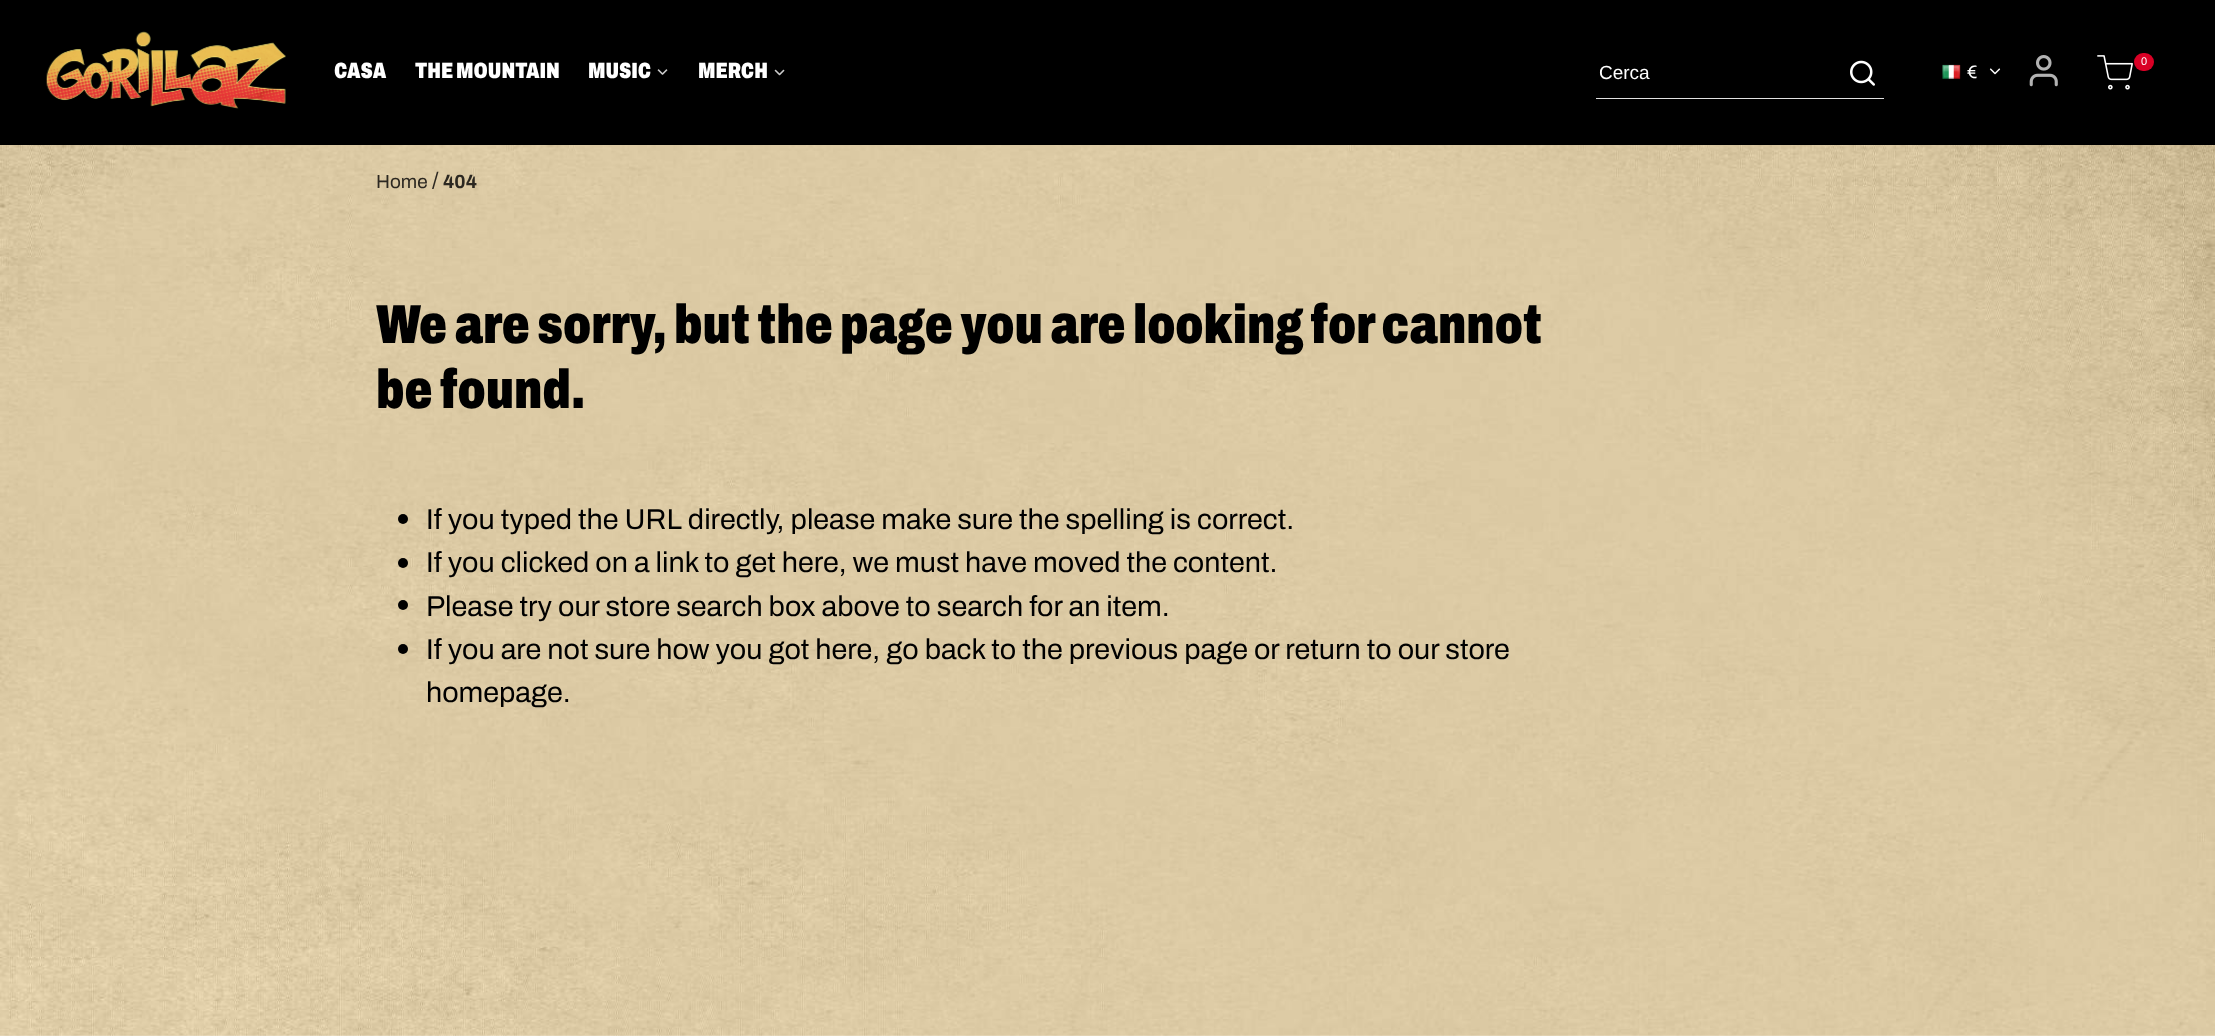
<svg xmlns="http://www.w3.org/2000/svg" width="2215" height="1036">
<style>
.a{font:900 22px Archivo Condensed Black;fill:#fff}
.b{font:11px Liberation Sans;fill:#fff}
.c{font:19px Liberation Sans;fill:#fff}
.d{font:18px Archivo;fill:#fff}
.e{font:19px Archivo;fill:#2c2821}
.f{font:22px Archivo;fill:#2c2821}
.g{font:bold 19px Archivo;fill:#2c2821}
.h{font:900 55px Archivo Condensed Black;fill:#000}
.i{font:28.75px Archivo;fill:#000}
</style>
<rect width="100%" height="100%" fill="#fff"/>
<image href="1.png" x="0" y="145" width="2215" height="891"/>
<path fill="#000" d="M0 0h2215v145H0z"/>
<image href="2.png" x="657" y="69" width="11" height="6"/>
<image href="3.png" x="774" y="69" width="11" height="7"/>
<image href="4.png" x="46" y="31" width="240" height="78"/>
<image href="5.png" x="2029" y="55" width="29" height="32"/>
<image href="6.png" x="2097" y="55" width="36" height="35"/>
<rect fill="#d90025" x="2134" y="53" width="20" height="18" rx="9"/>
<path fill="#e1e1e1" d="M1596 98h288v1H1596z"/>
<image href="7.png" x="1850" y="60" width="25" height="26"/>
<image href="8.png" x="1942" y="64" width="19" height="15"/>
<image href="9.png" x="1989" y="68" width="12" height="7"/>
<circle fill="#000" cx="403" cy="519" r="5"/>
<circle fill="#000" cx="403" cy="563" r="5"/>
<circle fill="#000" cx="403" cy="605" r="5"/>
<circle fill="#000" cx="403" cy="649" r="5"/>
<text class="a" x="334" y="78">CASA</text>
<text class="a" x="415" y="78">THE MOUNTAIN</text>
<text class="a" x="588" y="78">MUSIC</text>
<text class="a" x="698" y="78">MERCH</text>
<text class="b" x="2141" y="65">0</text>
<text class="c" x="1599" y="79">Cerca</text>
<text class="d" x="1967" y="78">€</text>
<text class="e" x="376" y="188">Home</text>
<text class="f" x="432" y="188">/</text>
<text class="g" x="443" y="188">404</text>
<text class="h" x="376" y="343">We are sorry, but the page you are looking for cannot</text>
<text class="h" x="376" y="408">be found.</text>
<text class="i" x="426" y="529">If you typed the URL directly, please make sure the spelling is correct.</text>
<text class="i" x="426" y="572">If you clicked on a link to get here, we must have moved the content.</text>
<text class="i" x="426" y="616">Please try our store search box above to search for an item.</text>
<text class="i" x="426" y="659">If you are not sure how you got here, go back to the previous page or return to our store</text>
<text class="i" x="426" y="702">homepage.</text>
</svg>
